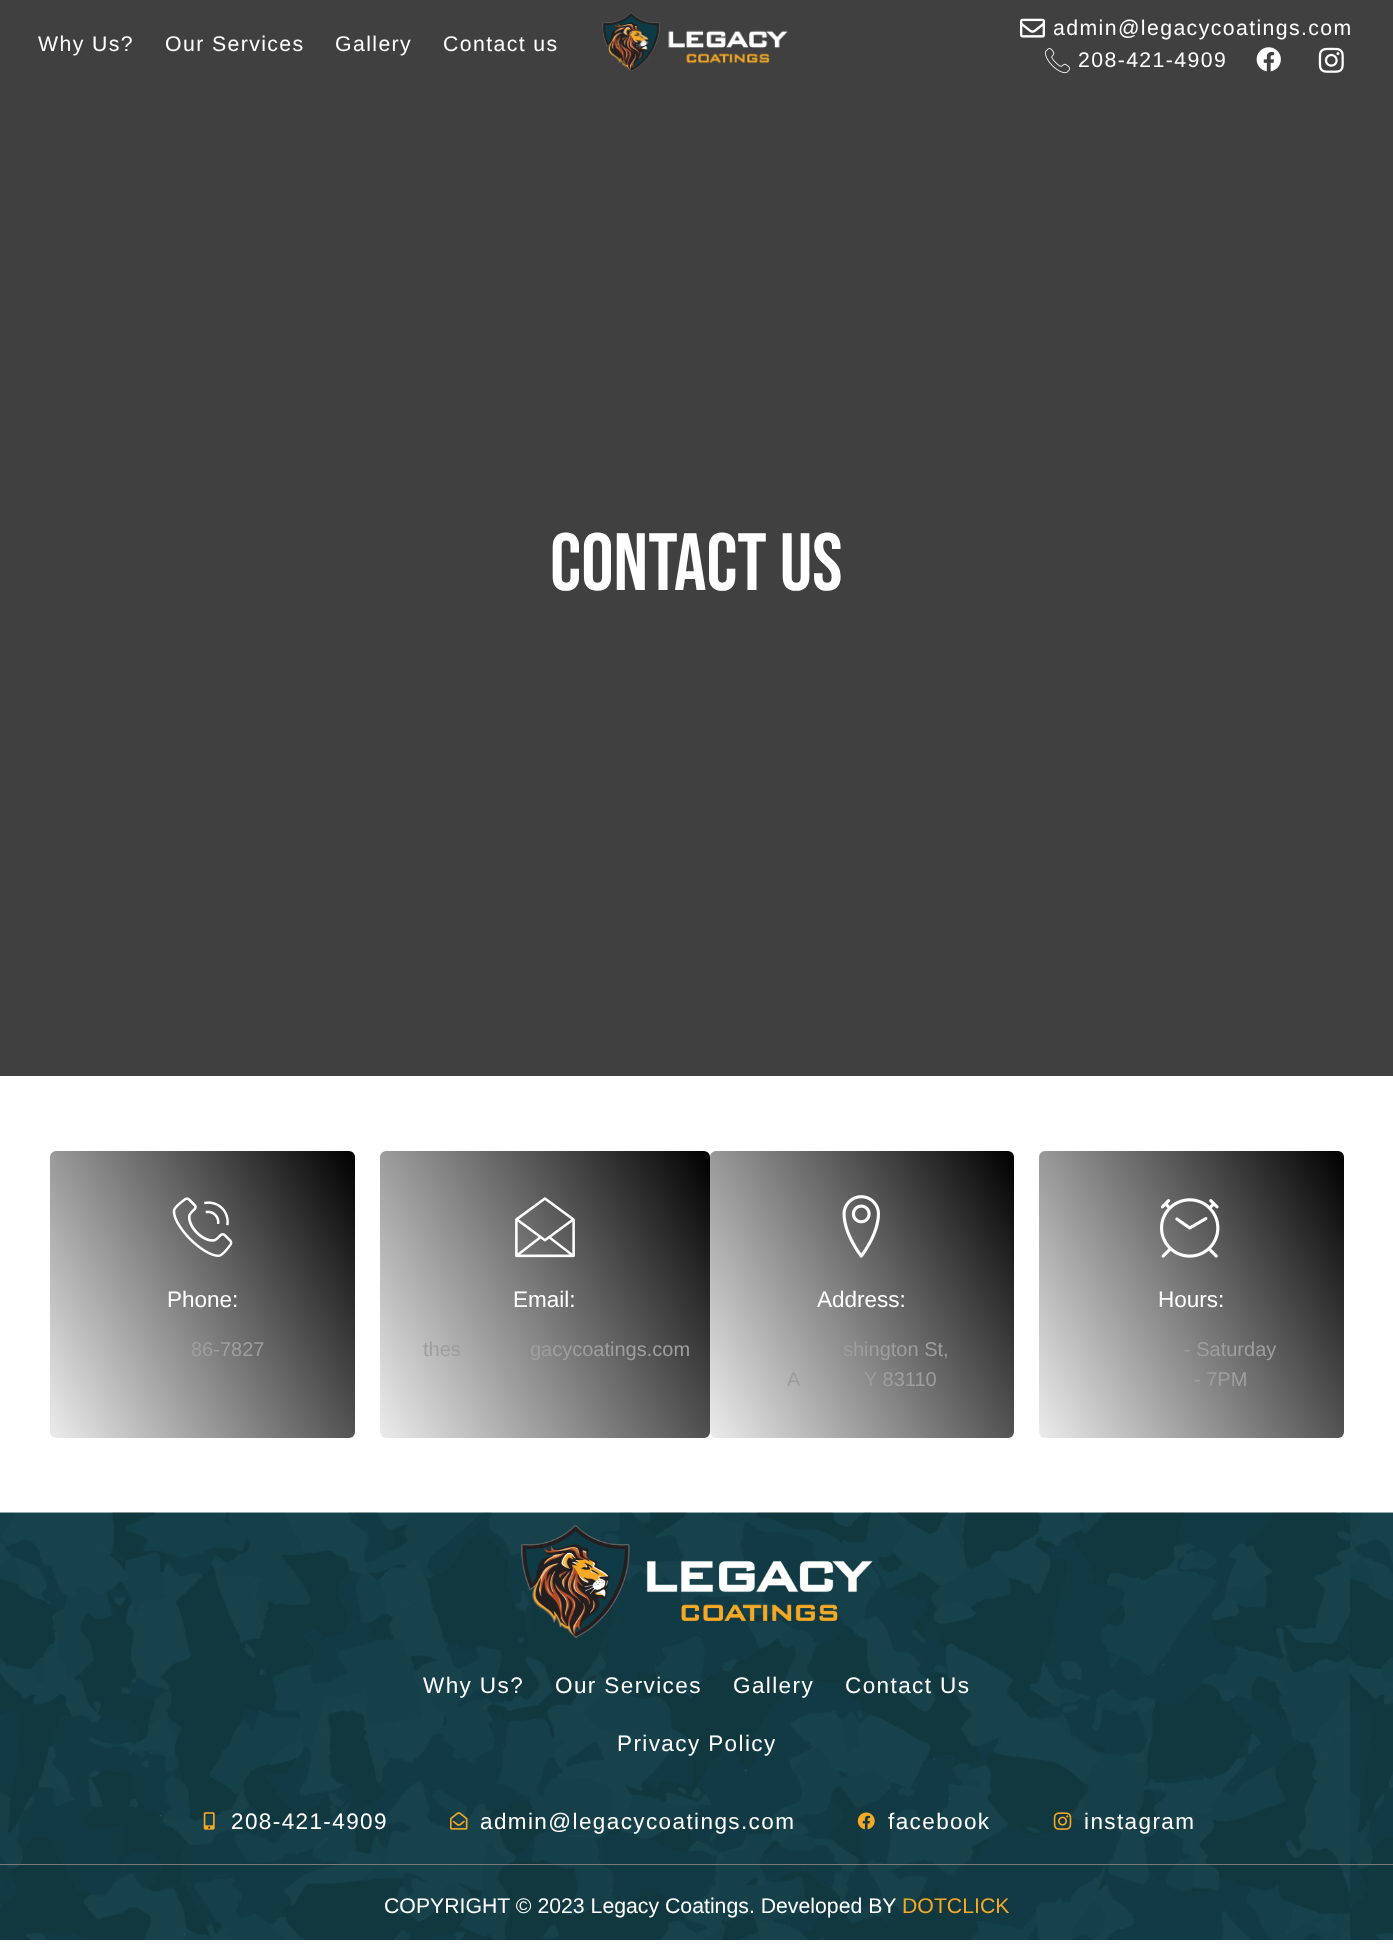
<svg xmlns="http://www.w3.org/2000/svg" width="1393" height="1960">
<style>
.a{font:21.25px Liberation Sans;letter-spacing:1.4px;fill:#fff}
.b{font:81px Bebas Neue;fill:#fff}
.c{font:22.5px Liberation Sans;fill:#fff}
.d{font:20px Liberation Sans;fill:#9e9e9e}
.e{font:22.5px Liberation Sans;letter-spacing:1.4px;fill:#fff}
.f{font:21.25px Liberation Sans;fill:#fff}
.g{font:21.25px Liberation Sans;fill:#f5a925}
</style>
<defs>
<linearGradient id="g1" gradientUnits="userSpaceOnUse" x1="379" y1="1193" x2="26" y2="1396"><stop offset="0" stop-color="#000"/><stop offset="1" stop-color="#ececec"/></linearGradient>
<linearGradient id="g2" gradientUnits="userSpaceOnUse" x1="731" y1="1187" x2="359" y2="1402"><stop offset="0" stop-color="#000"/><stop offset="1" stop-color="#ececec"/></linearGradient>
<linearGradient id="g3" gradientUnits="userSpaceOnUse" x1="1038" y1="1193" x2="686" y2="1396"><stop offset="0" stop-color="#000"/><stop offset="1" stop-color="#ececec"/></linearGradient>
<linearGradient id="g4" gradientUnits="userSpaceOnUse" x1="1368" y1="1193" x2="1015" y2="1396"><stop offset="0" stop-color="#000"/><stop offset="1" stop-color="#ececec"/></linearGradient>
</defs>
<rect width="100%" height="100%" fill="#fff"/>
<path fill="#404040" d="M0 0h1393v1076H0z"/>
<image href="1.png" x="602" y="12" width="186" height="60"/>
<image href="2.png" x="1020" y="18" width="25" height="20"/>
<image href="3.png" x="1045" y="48" width="25" height="26"/>
<image href="4.png" x="1256" y="47" width="25" height="25"/>
<image href="5.png" x="1318" y="47" width="26" height="26"/>
<rect fill="url(#g1)" x="50" y="1151" width="305" height="287" rx="6"/>
<image href="6.png" x="172" y="1197" width="61" height="60"/>
<rect fill="url(#g2)" x="380" y="1151" width="330" height="287" rx="6"/>
<image href="7.png" x="515" y="1197" width="60" height="61"/>
<rect fill="url(#g3)" x="710" y="1151" width="304" height="287" rx="6"/>
<image href="8.png" x="842" y="1195" width="38" height="63"/>
<rect fill="url(#g4)" x="1039" y="1151" width="305" height="287" rx="6"/>
<image href="9.png" x="1160" y="1198" width="60" height="60"/>
<image href="10.png" x="0" y="1512" width="1393" height="428"/>
<image href="11.png" x="521" y="1525" width="352" height="113"/>
<image href="12.png" x="203" y="1812" width="12" height="18"/>
<image href="13.png" x="450" y="1812" width="18" height="18"/>
<image href="14.png" x="857" y="1812" width="18" height="18"/>
<image href="15.png" x="1053" y="1812" width="19" height="18"/>
<path fill="#797979" d="M0 1864h1393v1H0z"/>
<text class="a" x="38" y="51">Why Us?</text>
<text class="a" x="165" y="51">Our Services</text>
<text class="a" x="335" y="51">Gallery</text>
<text class="a" x="443" y="51">Contact us</text>
<text class="a" x="1053" y="35">admin@legacycoatings.com</text>
<text class="a" x="1078" y="67">208-421-4909</text>
<text class="b" x="550" y="590">Contact Us</text>
<text class="c" x="167" y="1307">Phone:</text>
<text class="d" x="191" y="1356">86-7827</text>
<text class="c" x="513" y="1307">Email:</text>
<text class="d" x="423" y="1356">thes</text>
<text class="d" x="530" y="1356">gacycoatings.com</text>
<text class="c" x="817" y="1307">Address:</text>
<text class="d" x="843" y="1356">shington St,</text>
<text class="d" x="787" y="1386">A</text>
<text class="d" x="864" y="1386">Y 83110</text>
<text class="c" x="1158" y="1307">Hours:</text>
<text class="d" x="1184" y="1356">- Saturday</text>
<text class="d" x="1194" y="1386">- 7PM</text>
<text class="e" x="423" y="1693">Why Us?</text>
<text class="e" x="555" y="1693">Our Services</text>
<text class="e" x="733" y="1693">Gallery</text>
<text class="e" x="845" y="1693">Contact Us</text>
<text class="e" x="617" y="1751">Privacy Policy</text>
<text class="e" x="231" y="1829">208-421-4909</text>
<text class="e" x="480" y="1829">admin@legacycoatings.com</text>
<text class="e" x="888" y="1829">facebook</text>
<text class="e" x="1084" y="1829">instagram</text>
<text class="f" x="384" y="1913">COPYRIGHT © 2023 Legacy Coatings. Developed BY</text>
<text class="g" x="902" y="1913">DOTCLICK</text>
</svg>
